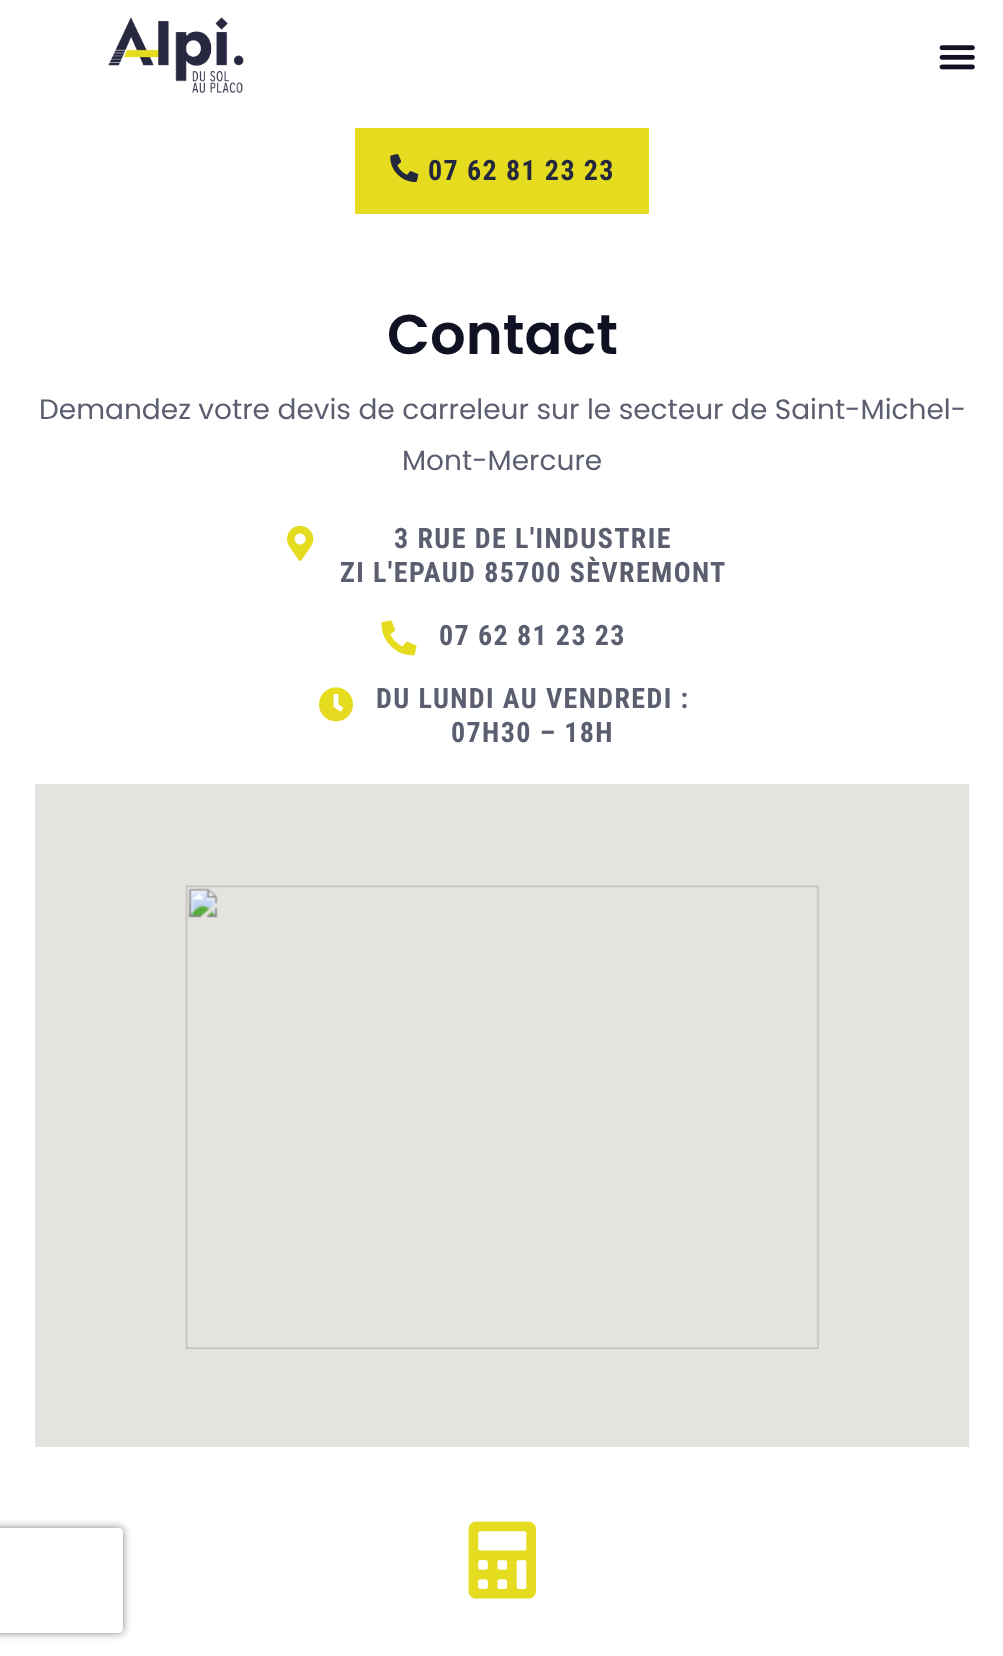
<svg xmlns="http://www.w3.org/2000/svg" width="1003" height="1656">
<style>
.a{font:bold 28px Roboto Condensed;letter-spacing:1.4px;fill:#24283f}
.b{font:600 56px Poppins;fill:#101223}
.c{font:28px Poppins;fill:#5b5e6f}
.d{font:bold 28px Roboto Condensed;letter-spacing:1.4px;fill:#5b5e6f}
</style>
<defs>
<clipPath id="clip1"><path d="M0 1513h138v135h-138zm-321 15h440c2 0 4 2 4 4v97c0 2-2 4-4 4h-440c-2 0-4-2-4-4v-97c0-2 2-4 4-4z" clip-rule="evenodd"/></clipPath>
</defs>
<rect width="100%" height="100%" fill="#fff"/>
<image href="1.png" x="108" y="17" width="136" height="76"/>
<image href="2.png" x="939" y="45" width="36" height="25"/>
<path fill="#e5db1f" d="M355 128h294v86H355z"/>
<image href="3.png" x="390" y="154" width="29" height="28"/>
<image href="4.png" x="287" y="525" width="27" height="36"/>
<image href="5.png" x="381" y="620" width="36" height="36"/>
<image href="6.png" x="319" y="687" width="34" height="35"/>
<image href="7.png" x="35" y="784" width="935" height="663"/>
<g clip-path="url(#clip1)">
<rect fill="#808080" filter="blur(4.5px)" x="-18" y="1528" width="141" height="105" rx="4"/>
</g>
<image href="8.png" x="468" y="1521" width="68" height="78"/>
<text class="a" x="428" y="180">07 62 81 23 23</text>
<text class="b" x="387" y="354">Contact</text>
<text class="c" x="39" y="419">Demandez votre devis de carreleur sur le secteur de Saint-Michel-</text>
<text class="c" x="402" y="470">Mont-Mercure</text>
<text class="d" x="394" y="548">3 RUE DE L'INDUSTRIE</text>
<text class="d" x="340" y="582">ZI L'EPAUD 85700 SÈVREMONT</text>
<text class="d" x="439" y="645">07 62 81 23 23</text>
<text class="d" x="376" y="708">DU LUNDI AU VENDREDI :</text>
<text class="d" x="451" y="742">07H30 – 18H</text>
</svg>
